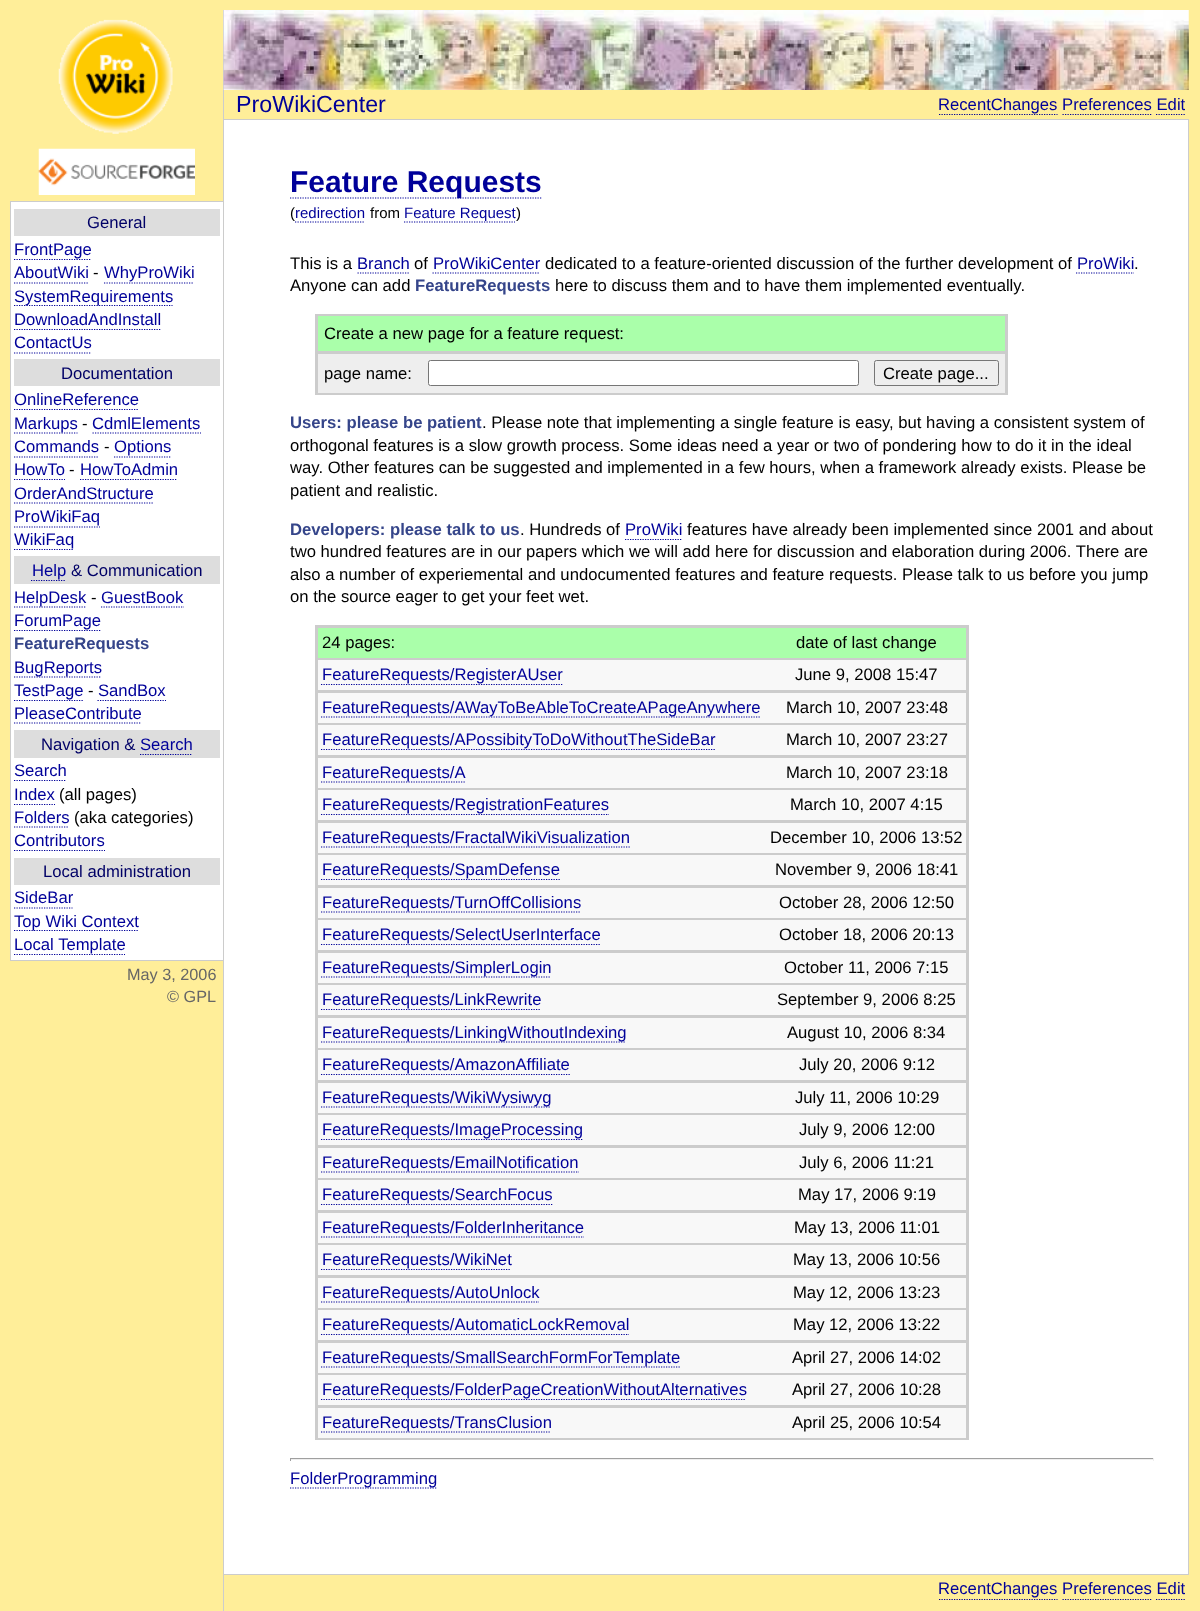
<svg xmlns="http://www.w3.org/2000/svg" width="1200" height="1611">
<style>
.a{font:16.67px Liberation Sans;fill:#006}
.b{font:16.67px Liberation Sans;fill:#009}
.c{font:16.67px Liberation Sans;fill:#000}
.d{font:bold 16.67px Liberation Sans;fill:#35458a}
.e{font:16.25px Liberation Sans;fill:#666}
.f{font:23.25px Liberation Sans;fill:#009}
.g{font:bold 30px Liberation Sans;fill:#009}
.h{font:15px Liberation Sans;fill:#000}
.i{font:15px Liberation Sans;fill:#009}
</style>
<rect width="100%" height="100%" fill="#fe9"/>
<image href="1.png" x="58" y="19" width="115" height="115"/>
<image href="2.png" x="38" y="148" width="157" height="47"/>
<path fill="#fff" d="M11 202h212v758H11z"/>
<path fill="#ccc" d="M10 201h213v1H10z"/>
<path fill="#ccc" d="M10 960h213v1H10z"/>
<path fill="#ccc" d="M10 201h1v760H10z"/>
<path fill="#ddd" d="M14 209h206v27H14z"/>
<path fill="none" stroke="#009" stroke-width="1.2" stroke-dasharray="1.25 1.25" d="M14 259.5h77"/>
<path fill="none" stroke="#009" stroke-width="1.2" stroke-dasharray="1.25 1.25" d="M14 283h75"/>
<path fill="none" stroke="#009" stroke-width="1.2" stroke-dasharray="1.25 1.25" d="M104 283h90"/>
<path fill="none" stroke="#009" stroke-width="1.2" stroke-dasharray="1.25 1.25" d="M14 305.5h158.5"/>
<path fill="none" stroke="#009" stroke-width="1.2" stroke-dasharray="1.25 1.25" d="M14 329.5h147"/>
<path fill="none" stroke="#009" stroke-width="1.2" stroke-dasharray="1.25 1.25" d="M14 353h77"/>
<path fill="#ddd" d="M14 359h206v27H14z"/>
<path fill="none" stroke="#009" stroke-width="1.2" stroke-dasharray="1.25 1.25" d="M14 409.5h125"/>
<path fill="none" stroke="#009" stroke-width="1.2" stroke-dasharray="1.25 1.25" d="M14 433h63.5"/>
<path fill="none" stroke="#009" stroke-width="1.2" stroke-dasharray="1.25 1.25" d="M92.5 433h108.5"/>
<path fill="none" stroke="#009" stroke-width="1.2" stroke-dasharray="1.25 1.25" d="M14 457h85"/>
<path fill="none" stroke="#009" stroke-width="1.2" stroke-dasharray="1.25 1.25" d="M114 457h57"/>
<path fill="none" stroke="#009" stroke-width="1.2" stroke-dasharray="1.25 1.25" d="M14 479.5h51"/>
<path fill="none" stroke="#009" stroke-width="1.2" stroke-dasharray="1.25 1.25" d="M80 479.5h97.5"/>
<path fill="none" stroke="#009" stroke-width="1.2" stroke-dasharray="1.25 1.25" d="M14 503h140"/>
<path fill="none" stroke="#009" stroke-width="1.2" stroke-dasharray="1.25 1.25" d="M14 527h86"/>
<path fill="none" stroke="#009" stroke-width="1.2" stroke-dasharray="1.25 1.25" d="M14 549.5h60"/>
<path fill="#ddd" d="M14 556h206v28H14z"/>
<path fill="none" stroke="#009" stroke-width="1.2" stroke-dasharray="1.25 1.25" d="M31 580.5h35"/>
<path fill="none" stroke="#009" stroke-width="1.2" stroke-dasharray="1.25 1.25" d="M14 607h72"/>
<path fill="none" stroke="#009" stroke-width="1.2" stroke-dasharray="1.25 1.25" d="M101 607h83"/>
<path fill="none" stroke="#009" stroke-width="1.2" stroke-dasharray="1.25 1.25" d="M14 630.5h87"/>
<path fill="none" stroke="#009" stroke-width="1.2" stroke-dasharray="1.25 1.25" d="M14 677h87"/>
<path fill="none" stroke="#009" stroke-width="1.2" stroke-dasharray="1.25 1.25" d="M14 700.5h70"/>
<path fill="none" stroke="#009" stroke-width="1.2" stroke-dasharray="1.25 1.25" d="M97.5 700.5h68.5"/>
<path fill="none" stroke="#009" stroke-width="1.2" stroke-dasharray="1.25 1.25" d="M14 723h127"/>
<path fill="#ddd" d="M14 730h206v28H14z"/>
<path fill="none" stroke="#009" stroke-width="1.2" stroke-dasharray="1.25 1.25" d="M140 754.5h52.5"/>
<path fill="none" stroke="#009" stroke-width="1.2" stroke-dasharray="1.25 1.25" d="M14 780.5h52"/>
<path fill="none" stroke="#009" stroke-width="1.2" stroke-dasharray="1.25 1.25" d="M14 804.5h41"/>
<path fill="none" stroke="#009" stroke-width="1.2" stroke-dasharray="1.25 1.25" d="M14 827h55"/>
<path fill="none" stroke="#009" stroke-width="1.2" stroke-dasharray="1.25 1.25" d="M14 850.5h91"/>
<path fill="#ddd" d="M14 858h206v27H14z"/>
<path fill="none" stroke="#009" stroke-width="1.2" stroke-dasharray="1.25 1.25" d="M14 908h58.5"/>
<path fill="none" stroke="#009" stroke-width="1.2" stroke-dasharray="1.25 1.25" d="M14 930.5h125"/>
<path fill="none" stroke="#009" stroke-width="1.2" stroke-dasharray="1.25 1.25" d="M14 954.5h111"/>
<path fill="#ccc" d="M223 10h1v1601H223z"/>
<image href="3.png" x="223" y="10" width="966" height="80"/>
<path fill="none" stroke="#009" stroke-width="1.2" stroke-dasharray="1.25 1.25" d="M939 114.5h118.5"/>
<path fill="none" stroke="#009" stroke-width="1.2" stroke-dasharray="1.25 1.25" d="M1062.5 114.5h90"/>
<path fill="none" stroke="#009" stroke-width="1.2" stroke-dasharray="1.25 1.25" d="M1156 114.5h29"/>
<path fill="#fff" d="M224 120h964v1454H224z"/>
<path fill="#ccc" d="M224 119h965v1H224z"/>
<path fill="#ccc" d="M1188 119h1v1456H1188z"/>
<path fill="#ccc" d="M224 1574h965v1H224z"/>
<path fill="none" stroke="#009" stroke-width="1.2" stroke-dasharray="1.25 1.25" d="M290 198h252.5"/>
<path fill="none" stroke="#009" stroke-width="1.2" stroke-dasharray="1.25 1.25" d="M404 222h111"/>
<path fill="none" stroke="#009" stroke-width="1.2" stroke-dasharray="1.25 1.25" d="M357.5 273h52.5"/>
<path fill="none" stroke="#009" stroke-width="1.2" stroke-dasharray="1.25 1.25" d="M432.5 273h107.5"/>
<path fill="none" stroke="#009" stroke-width="1.2" stroke-dasharray="1.25 1.25" d="M1076 273h58"/>
<path fill="#ccc" d="M315 314h693v81H315z"/>
<path fill="#afa" d="M318 316h687v35H318z"/>
<path fill="#eee" d="M318 354h687v39H318z"/>
<rect fill="#fff" stroke="#767676" x="428.5" y="360.5" width="430" height="25" rx="2"/>
<rect fill="none" stroke="#767676" x="874.5" y="360.5" width="124" height="25" rx="2"/>
<path fill="none" stroke="#009" stroke-width="1.2" stroke-dasharray="1.25 1.25" d="M625 539.5h57.5"/>
<path fill="#ccc" d="M315 625h654v815H315z"/>
<path fill="#afa" d="M318 628h648v30H318z"/>
<path fill="#f8f8f8" d="M318 660h648v30H318z"/>
<path fill="none" stroke="#009" stroke-width="1.2" stroke-dasharray="1.25 1.25" d="M321 684.5h241.5"/>
<path fill="#f8f8f8" d="M318 693h648v30H318z"/>
<path fill="none" stroke="#009" stroke-width="1.2" stroke-dasharray="1.25 1.25" d="M321 717h439"/>
<path fill="#f8f8f8" d="M318 725h648v30H318z"/>
<path fill="none" stroke="#009" stroke-width="1.2" stroke-dasharray="1.25 1.25" d="M321 749.5h394"/>
<path fill="#f8f8f8" d="M318 758h648v30H318z"/>
<path fill="none" stroke="#009" stroke-width="1.2" stroke-dasharray="1.25 1.25" d="M321 782h144"/>
<path fill="#f8f8f8" d="M318 790h648v30H318z"/>
<path fill="none" stroke="#009" stroke-width="1.2" stroke-dasharray="1.25 1.25" d="M321 814.5h288"/>
<path fill="#f8f8f8" d="M318 823h648v30H318z"/>
<path fill="none" stroke="#009" stroke-width="1.2" stroke-dasharray="1.25 1.25" d="M321 847h309"/>
<path fill="#f8f8f8" d="M318 855h648v30H318z"/>
<path fill="none" stroke="#009" stroke-width="1.2" stroke-dasharray="1.25 1.25" d="M321 879.5h239"/>
<path fill="#f8f8f8" d="M318 888h648v30H318z"/>
<path fill="none" stroke="#009" stroke-width="1.2" stroke-dasharray="1.25 1.25" d="M321 912h260"/>
<path fill="#f8f8f8" d="M318 920h648v30H318z"/>
<path fill="none" stroke="#009" stroke-width="1.2" stroke-dasharray="1.25 1.25" d="M321 944.5h279"/>
<path fill="#f8f8f8" d="M318 953h648v30H318z"/>
<path fill="none" stroke="#009" stroke-width="1.2" stroke-dasharray="1.25 1.25" d="M321 977h230"/>
<path fill="#f8f8f8" d="M318 985h648v30H318z"/>
<path fill="none" stroke="#009" stroke-width="1.2" stroke-dasharray="1.25 1.25" d="M321 1009.5h220"/>
<path fill="#f8f8f8" d="M318 1018h648v30H318z"/>
<path fill="none" stroke="#009" stroke-width="1.2" stroke-dasharray="1.25 1.25" d="M321 1042h305"/>
<path fill="#f8f8f8" d="M318 1050h648v30H318z"/>
<path fill="none" stroke="#009" stroke-width="1.2" stroke-dasharray="1.25 1.25" d="M321 1074.5h249"/>
<path fill="#f8f8f8" d="M318 1083h648v30H318z"/>
<path fill="none" stroke="#009" stroke-width="1.2" stroke-dasharray="1.25 1.25" d="M321 1107h230"/>
<path fill="#f8f8f8" d="M318 1115h648v30H318z"/>
<path fill="none" stroke="#009" stroke-width="1.2" stroke-dasharray="1.25 1.25" d="M321 1139.5h261.5"/>
<path fill="#f8f8f8" d="M318 1148h648v30H318z"/>
<path fill="none" stroke="#009" stroke-width="1.2" stroke-dasharray="1.25 1.25" d="M321 1172h258"/>
<path fill="#f8f8f8" d="M318 1180h648v30H318z"/>
<path fill="none" stroke="#009" stroke-width="1.2" stroke-dasharray="1.25 1.25" d="M321 1204.5h231.5"/>
<path fill="#f8f8f8" d="M318 1213h648v30H318z"/>
<path fill="none" stroke="#009" stroke-width="1.2" stroke-dasharray="1.25 1.25" d="M321 1237h263"/>
<path fill="#f8f8f8" d="M318 1245h648v30H318z"/>
<path fill="none" stroke="#009" stroke-width="1.2" stroke-dasharray="1.25 1.25" d="M321 1269.5h190"/>
<path fill="#f8f8f8" d="M318 1278h648v30H318z"/>
<path fill="none" stroke="#009" stroke-width="1.2" stroke-dasharray="1.25 1.25" d="M321 1302h218"/>
<path fill="#f8f8f8" d="M318 1310h648v30H318z"/>
<path fill="none" stroke="#009" stroke-width="1.2" stroke-dasharray="1.25 1.25" d="M321 1334.5h308"/>
<path fill="#f8f8f8" d="M318 1343h648v30H318z"/>
<path fill="none" stroke="#009" stroke-width="1.2" stroke-dasharray="1.25 1.25" d="M321 1367h359"/>
<path fill="#f8f8f8" d="M318 1375h648v30H318z"/>
<path fill="none" stroke="#009" stroke-width="1.2" stroke-dasharray="1.25 1.25" d="M321 1399.5h425"/>
<path fill="#f8f8f8" d="M318 1408h648v30H318z"/>
<path fill="none" stroke="#009" stroke-width="1.2" stroke-dasharray="1.25 1.25" d="M321 1432h230"/>
<path fill="#9f9f9f" d="M290 1458h864v1H290z"/>
<path fill="#eee" d="M1153 1458h1v3H1153z"/>
<path fill="#eee" d="M290 1459h864v1H290z"/>
<path fill="#9f9f9f" d="M290 1458h1v3H290z"/>
<path fill="none" stroke="#009" stroke-width="1.2" stroke-dasharray="1.25 1.25" d="M290 1488h147.5"/>
<path fill="none" stroke="#009" stroke-width="1.2" stroke-dasharray="1.25 1.25" d="M939 1599.5h118.5"/>
<path fill="none" stroke="#009" stroke-width="1.2" stroke-dasharray="1.25 1.25" d="M1062.5 1599.5h90"/>
<path fill="none" stroke="#009" stroke-width="1.2" stroke-dasharray="1.25 1.25" d="M1156 1599.5h29"/>
<text class="a" x="87" y="228">General</text>
<text class="b" x="14" y="255">FrontPage</text>
<text class="b" x="14" y="278">AboutWiki</text>
<text class="c" x="93" y="278">-</text>
<text class="b" x="104" y="278">WhyProWiki</text>
<text class="b" x="14" y="302">SystemRequirements</text>
<text class="b" x="14" y="325">DownloadAndInstall</text>
<text class="b" x="14" y="348">ContactUs</text>
<text class="a" x="61" y="379">Documentation</text>
<text class="b" x="14" y="405">OnlineReference</text>
<text class="b" x="14" y="429">Markups</text>
<text class="c" x="82" y="429">-</text>
<text class="b" x="92" y="429">CdmlElements</text>
<text class="b" x="14" y="452">Commands</text>
<text class="c" x="104" y="452">-</text>
<text class="b" x="114" y="452">Options</text>
<text class="b" x="14" y="475">HowTo</text>
<text class="c" x="69" y="475">-</text>
<text class="b" x="80" y="475">HowToAdmin</text>
<text class="b" x="14" y="499">OrderAndStructure</text>
<text class="b" x="14" y="522">ProWikiFaq</text>
<text class="b" x="14" y="545">WikiFaq</text>
<text class="b" x="32" y="576">Help</text>
<text class="a" x="71" y="576">&amp; Communication</text>
<text class="b" x="14" y="603">HelpDesk</text>
<text class="c" x="91" y="603">-</text>
<text class="b" x="101" y="603">GuestBook</text>
<text class="b" x="14" y="626">ForumPage</text>
<text class="d" x="14" y="649">FeatureRequests</text>
<text class="b" x="14" y="673">BugReports</text>
<text class="b" x="14" y="696">TestPage</text>
<text class="c" x="88" y="696">-</text>
<text class="b" x="98" y="696">SandBox</text>
<text class="b" x="14" y="719">PleaseContribute</text>
<text class="a" x="41" y="750">Navigation &amp;</text>
<text class="b" x="140" y="750">Search</text>
<text class="b" x="14" y="776">Search</text>
<text class="b" x="14" y="800">Index</text>
<text class="c" x="59" y="800">(all pages)</text>
<text class="b" x="14" y="823">Folders</text>
<text class="c" x="74" y="823">(aka categories)</text>
<text class="b" x="14" y="846">Contributors</text>
<text class="a" x="43" y="877">Local administration</text>
<text class="b" x="14" y="903">SideBar</text>
<text class="b" x="14" y="927">Top Wiki Context</text>
<text class="b" x="14" y="950">Local Template</text>
<text class="e" x="127" y="980">May 3, 2006</text>
<text class="e" x="167" y="1002">© GPL</text>
<text class="f" x="236" y="112">ProWikiCenter</text>
<text class="b" x="938" y="110">RecentChanges Preferences Edit</text>
<text class="g" x="290" y="192">Feature Requests</text>
<text class="h" x="290" y="218">(</text>
<path fill="none" stroke="#009" stroke-width="1.2" stroke-dasharray="1.25 1.25" d="M295 222h70"/>
<text class="i" x="295" y="218">redirection</text>
<text class="h" x="370" y="218">from</text>
<text class="i" x="404" y="218">Feature Request</text>
<text class="h" x="516" y="218">)</text>
<text class="c" x="290" y="269">This is a</text>
<text class="b" x="357" y="269">Branch</text>
<text class="c" x="414" y="269">of</text>
<text class="b" x="433" y="269">ProWikiCenter</text>
<text class="c" x="545" y="269">dedicated to a feature-oriented discussion of the further development of</text>
<text class="b" x="1077" y="269">ProWiki</text>
<text class="c" x="1134" y="269">.</text>
<text class="c" x="290" y="291">Anyone can add</text>
<text class="d" x="415" y="291">FeatureRequests</text>
<text class="c" x="555" y="291">here to discuss them and to have them implemented eventually.</text>
<text class="c" x="324" y="339">Create a new page for a feature request:</text>
<text class="c" x="324" y="379">page name:</text>
<text class="c" x="883" y="379">Create page...</text>
<text class="d" x="290" y="428">Users: please be patient</text>
<text class="c" x="482" y="428">. Please note that implementing a single feature is easy, but having a consistent system of</text>
<text class="c" x="290" y="451">orthogonal features is a slow growth process. Some ideas need a year or two of pondering how to do it in the ideal</text>
<text class="c" x="290" y="473">way. Other features can be suggested and implemented in a few hours, when a framework already exists. Please be</text>
<text class="c" x="290" y="496">patient and realistic.</text>
<text class="d" x="290" y="535">Developers: please talk to us</text>
<text class="c" x="520" y="535">. Hundreds of</text>
<text class="b" x="625" y="535">ProWiki</text>
<text class="c" x="687" y="535">features have already been implemented since 2001 and about</text>
<text class="c" x="290" y="557">two hundred features are in our papers which we will add here for discussion and elaboration during 2006. There are</text>
<text class="c" x="290" y="580">also a number of experiemental and undocumented features and feature requests. Please talk to us before you jump</text>
<text class="c" x="290" y="602">on the source eager to get your feet wet.</text>
<text class="c" x="322" y="648">24 pages:</text>
<text class="c" x="796" y="648">date of last change</text>
<text class="b" x="322" y="680">FeatureRequests/RegisterAUser</text>
<text class="c" x="795" y="680">June 9, 2008 15:47</text>
<text class="b" x="322" y="713">FeatureRequests/AWayToBeAbleToCreateAPageAnywhere</text>
<text class="c" x="786" y="713">March 10, 2007 23:48</text>
<text class="b" x="322" y="745">FeatureRequests/APossibityToDoWithoutTheSideBar</text>
<text class="c" x="786" y="745">March 10, 2007 23:27</text>
<text class="b" x="322" y="778">FeatureRequests/A</text>
<text class="c" x="786" y="778">March 10, 2007 23:18</text>
<text class="b" x="322" y="810">FeatureRequests/RegistrationFeatures</text>
<text class="c" x="790" y="810">March 10, 2007 4:15</text>
<text class="b" x="322" y="843">FeatureRequests/FractalWikiVisualization</text>
<text class="c" x="770" y="843">December 10, 2006 13:52</text>
<text class="b" x="322" y="875">FeatureRequests/SpamDefense</text>
<text class="c" x="775" y="875">November 9, 2006 18:41</text>
<text class="b" x="322" y="908">FeatureRequests/TurnOffCollisions</text>
<text class="c" x="779" y="908">October 28, 2006 12:50</text>
<text class="b" x="322" y="940">FeatureRequests/SelectUserInterface</text>
<text class="c" x="779" y="940">October 18, 2006 20:13</text>
<text class="b" x="322" y="973">FeatureRequests/SimplerLogin</text>
<text class="c" x="784" y="973">October 11, 2006 7:15</text>
<text class="b" x="322" y="1005">FeatureRequests/LinkRewrite</text>
<text class="c" x="777" y="1005">September 9, 2006 8:25</text>
<text class="b" x="322" y="1038">FeatureRequests/LinkingWithoutIndexing</text>
<text class="c" x="787" y="1038">August 10, 2006 8:34</text>
<text class="b" x="322" y="1070">FeatureRequests/AmazonAffiliate</text>
<text class="c" x="799" y="1070">July 20, 2006 9:12</text>
<text class="b" x="322" y="1103">FeatureRequests/WikiWysiwyg</text>
<text class="c" x="795" y="1103">July 11, 2006 10:29</text>
<text class="b" x="322" y="1135">FeatureRequests/ImageProcessing</text>
<text class="c" x="799" y="1135">July 9, 2006 12:00</text>
<text class="b" x="322" y="1168">FeatureRequests/EmailNotification</text>
<text class="c" x="799" y="1168">July 6, 2006 11:21</text>
<text class="b" x="322" y="1200">FeatureRequests/SearchFocus</text>
<text class="c" x="798" y="1200">May 17, 2006 9:19</text>
<text class="b" x="322" y="1233">FeatureRequests/FolderInheritance</text>
<text class="c" x="794" y="1233">May 13, 2006 11:01</text>
<text class="b" x="322" y="1265">FeatureRequests/WikiNet</text>
<text class="c" x="793" y="1265">May 13, 2006 10:56</text>
<text class="b" x="322" y="1298">FeatureRequests/AutoUnlock</text>
<text class="c" x="793" y="1298">May 12, 2006 13:23</text>
<text class="b" x="322" y="1330">FeatureRequests/AutomaticLockRemoval</text>
<text class="c" x="793" y="1330">May 12, 2006 13:22</text>
<text class="b" x="322" y="1363">FeatureRequests/SmallSearchFormForTemplate</text>
<text class="c" x="792" y="1363">April 27, 2006 14:02</text>
<text class="b" x="322" y="1395">FeatureRequests/FolderPageCreationWithoutAlternatives</text>
<text class="c" x="792" y="1395">April 27, 2006 10:28</text>
<text class="b" x="322" y="1428">FeatureRequests/TransClusion</text>
<text class="c" x="792" y="1428">April 25, 2006 10:54</text>
<text class="b" x="290" y="1484">FolderProgramming</text>
<text class="b" x="938" y="1594">RecentChanges Preferences Edit</text>
</svg>
